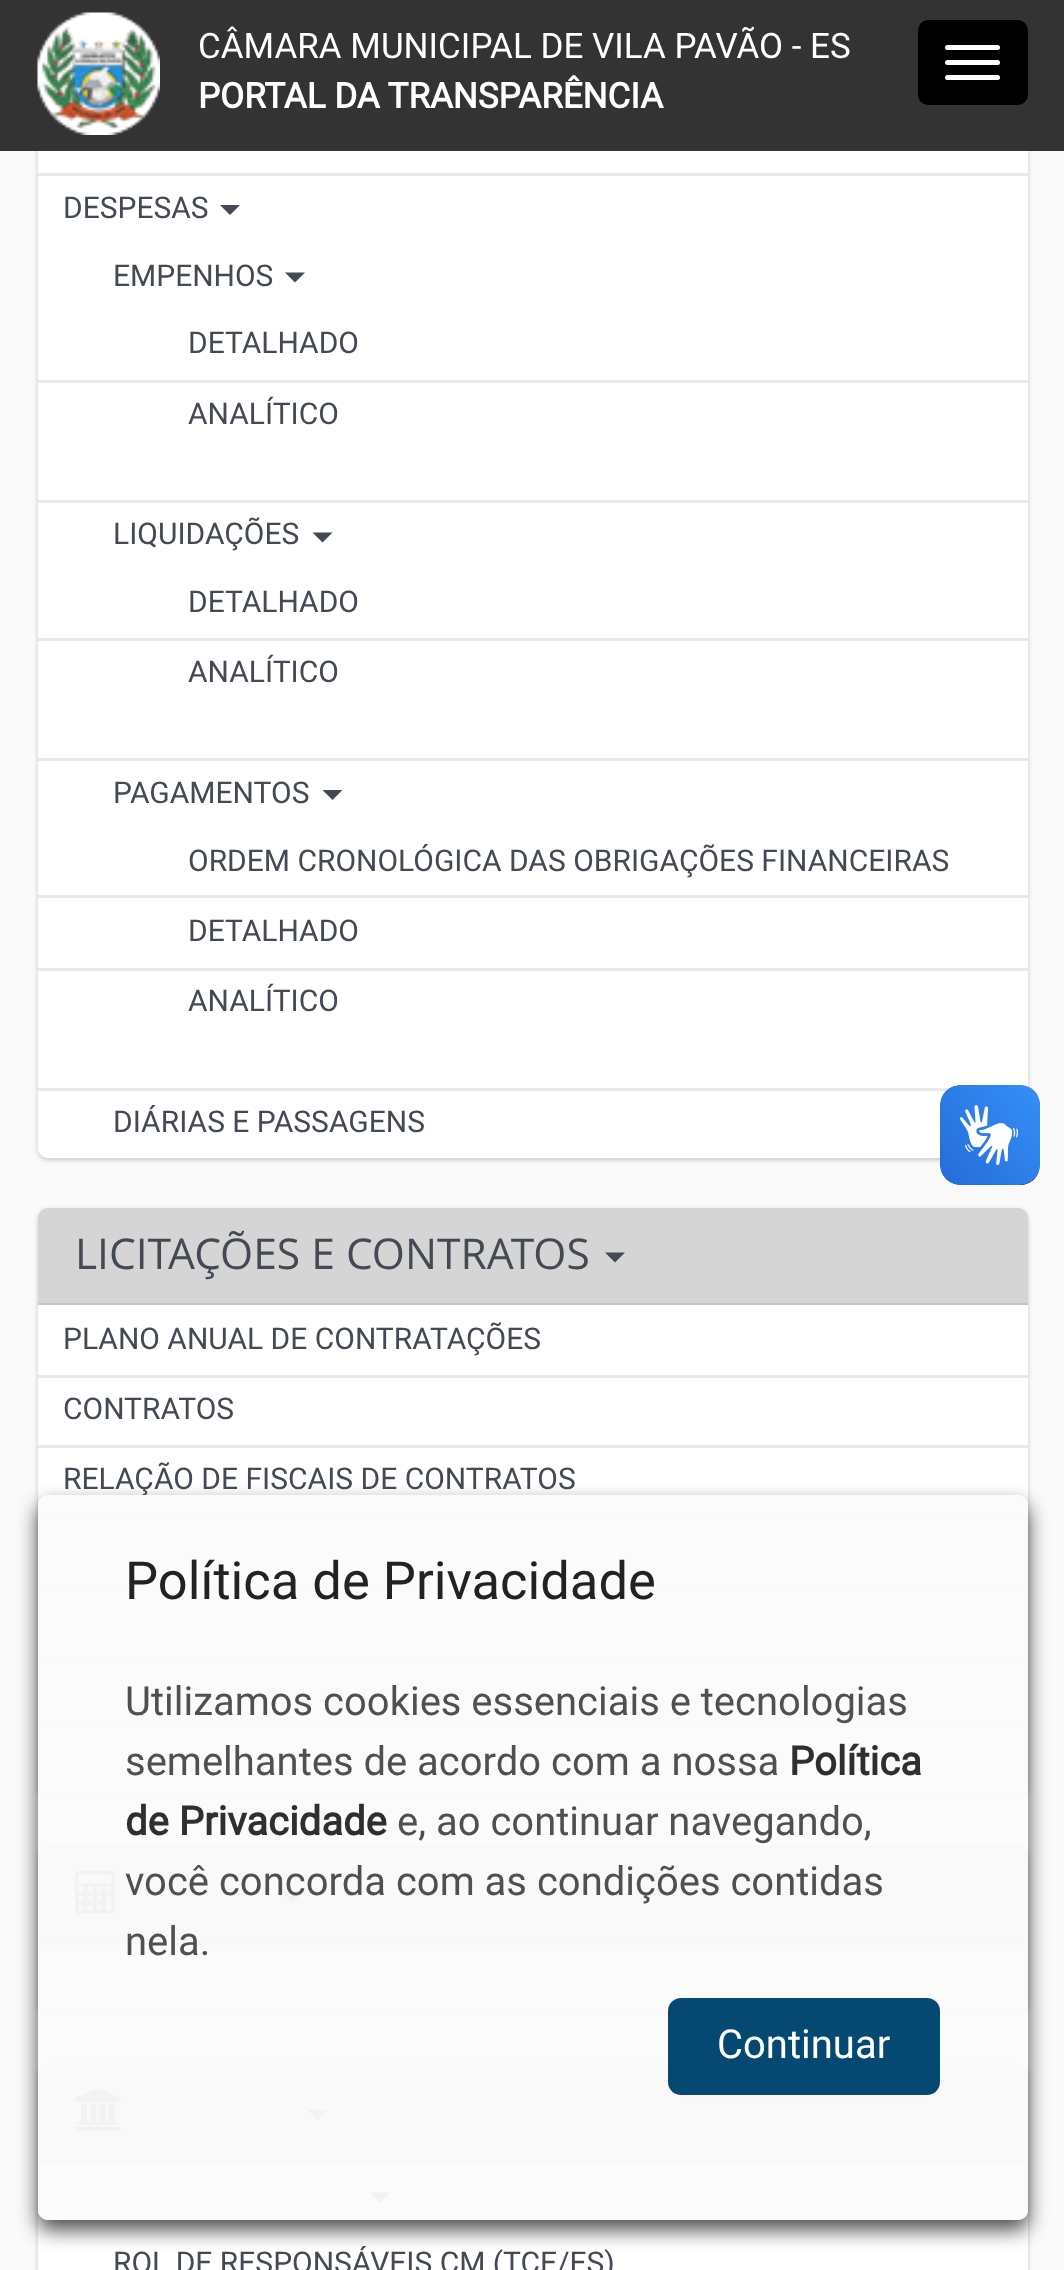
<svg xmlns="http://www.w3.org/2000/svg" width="1064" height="2270">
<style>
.a{font:35px Roboto;fill:#fff}
.b{font:bold 35px Roboto;fill:#fff}
.c{font:30px Roboto;fill:#434a54}
.d{font:42.5px Open Sans;fill:#434a54}
.e{font:52.5px Roboto;fill:#222}
.f{font:40px Roboto;fill:#505050}
.g{font:bold 40px Roboto;fill:#2f2f2f}
.h{font:40px 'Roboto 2';fill:#fff}
</style>
<defs>
<clipPath id="clip1"><path d="M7 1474h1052v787h-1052zm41 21h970c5.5 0 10 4.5 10 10v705c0 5.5-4.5 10-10 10h-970c-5.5 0-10-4.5-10-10v-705c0-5.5 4.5-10 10-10z" clip-rule="evenodd"/></clipPath>
</defs>
<rect width="100%" height="100%" fill="#fafafa"/>
<rect fill="#00000033" filter="blur(2.5px)" x="38" y="-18" width="990" height="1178" rx="10"/>
<rect fill="#fff" x="38" y="-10" width="990" height="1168" rx="10"/>
<path fill="#333" d="M0 0h1064v151H0z"/>
<image href="1.png" x="37" y="12" width="123" height="123"/>
<rect fill="#000" stroke="#000" stroke-width="3" x="919.5" y="21.5" width="107" height="82" rx="8.5"/>
<rect fill="#fff" x="945" y="45" width="55" height="5" rx="2.5"/>
<rect fill="#fff" x="945" y="60" width="55" height="5" rx="2.5"/>
<rect fill="#fff" x="945" y="75" width="55" height="5" rx="2.5"/>
<path fill="#e6e9ed" d="M38 173h990v3H38z"/>
<path fill="#434a54" d="M220 205h20l-10 10z"/>
<path fill="#434a54" d="M285 272.5h20l-10 10z"/>
<path fill="#e6e9ed" d="M38 380h990v3H38z"/>
<path fill="#e6e9ed" d="M38 500h990v3H38z"/>
<path fill="#434a54" d="M312.5 532.5h20l-10 10z"/>
<path fill="#e6e9ed" d="M38 638h990v3H38z"/>
<path fill="#e6e9ed" d="M38 758h990v3H38z"/>
<path fill="#434a54" d="M322.5 790h20l-10 10z"/>
<path fill="#e6e9ed" d="M38 895h990v3H38z"/>
<path fill="#e6e9ed" d="M38 968h990v3H38z"/>
<path fill="#fff" d="M38 1088h990v60c0 5.5-4.5 10-10 10h-970c-5.5 0-10-4.5-10-10z"/>
<path fill="#e6e9ed" d="M38 1088h912v3H38z"/>
<rect fill="#00000033" filter="blur(2.5px)" x="38" y="1210" width="990" height="588" rx="10"/>
<rect fill="#fff" x="38" y="1208" width="990" height="587" rx="10"/>
<path fill="#d5d5d5" d="M48 1208h970c5.5 0 10 4.5 10 10v87h-990v-87c0-5.5 4.5-10 10-10z"/>
<path fill="#c5c5c5" d="M38 1303h990v2H38z"/>
<path fill="#434a54" d="M605 1252.5h20l-10 10z"/>
<path fill="#e6e9ed" d="M38 1375h990v3H38z"/>
<path fill="#e6e9ed" d="M38 1445h990v3H38z"/>
<path fill="#e6e9ed" d="M38 1515h990v3H38z"/>
<path fill="#e6e9ed" d="M38 1585h990v3H38z"/>
<path fill="#e6e9ed" d="M38 1655h990v3H38z"/>
<path fill="#fff" d="M38 1725h990v60c0 5.5-4.5 10-10 10h-970c-5.5 0-10-4.5-10-10z"/>
<path fill="#e6e9ed" d="M38 1725h990v3H38z"/>
<rect fill="#00000033" filter="blur(2.5px)" x="38" y="1848" width="990" height="167" rx="10"/>
<path fill="#d5d5d5" d="M48 1845h970c5.5 0 10 4.5 10 10v90h-990v-90c0-5.5 4.5-10 10-10z"/>
<path fill="#c5c5c5" d="M38 1943h990v2H38z"/>
<image href="2.png" x="75" y="1871" width="40" height="43"/>
<path fill="#434a54" d="M282.5 1892.5h20l-10 10z"/>
<path fill="#fff" d="M38 1945h990v58c0 5.5-4.5 10-10 10h-970c-5.5 0-10-4.5-10-10z"/>
<rect fill="#00000033" filter="blur(2.5px)" x="38" y="2065" width="990" height="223" rx="10"/>
<rect fill="#fff" x="38" y="2063" width="990" height="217" rx="10"/>
<path fill="#d5d5d5" d="M48 2063h970c5.5 0 10 4.5 10 10v90h-990v-90c0-5.5 4.5-10 10-10z"/>
<path fill="#c5c5c5" d="M38 2160h990v3H38z"/>
<image href="3.png" x="75" y="2088" width="46" height="44"/>
<path fill="#434a54" d="M307.5 2110h20l-10 10z"/>
<path fill="#434a54" d="M370 2192.5h20l-10 10z"/>
<image href="4.png" x="940" y="1085" width="100" height="100"/>
<image href="5.png" x="940" y="1085" width="100" height="100"/>
<g clip-path="url(#clip1)">
<rect fill="#000000b3" filter="blur(10px)" x="38" y="1505" width="990" height="725" rx="10"/>
</g>
<text class="a" x="198" y="58">CÂMARA MUNICIPAL DE VILA PAVÃO - ES</text>
<text class="b" x="198" y="108">PORTAL DA TRANSPARÊNCIA</text>
<text class="c" x="63" y="218">DESPESAS</text>
<text class="c" x="113" y="286">EMPENHOS</text>
<text class="c" x="188" y="353">DETALHADO</text>
<text class="c" x="188" y="424">ANALÍTICO</text>
<text class="c" x="113" y="544">LIQUIDAÇÕES</text>
<text class="c" x="188" y="612">DETALHADO</text>
<text class="c" x="188" y="682">ANALÍTICO</text>
<text class="c" x="113" y="803">PAGAMENTOS</text>
<text class="c" x="188" y="871">ORDEM CRONOLÓGICA DAS OBRIGAÇÕES FINANCEIRAS</text>
<text class="c" x="188" y="941">DETALHADO</text>
<text class="c" x="188" y="1011">ANALÍTICO</text>
<text class="c" x="113" y="1132">DIÁRIAS E PASSAGENS</text>
<text class="d" x="75" y="1269">LICITAÇÕES E CONTRATOS</text>
<text class="c" x="63" y="1349">PLANO ANUAL DE CONTRATAÇÕES</text>
<text class="c" x="63" y="1419">CONTRATOS</text>
<text class="c" x="63" y="1489">RELAÇÃO DE FISCAIS DE CONTRATOS</text>
<text class="c" x="113" y="2273">ROL DE RESPONSÁVEIS CM (TCE/ES)</text>
<rect fill="#fbfbfbf2" x="38" y="1495" width="990" height="725" rx="10"/>
<text class="e" x="125" y="1599">Política de Privacidade</text>
<text class="f" x="125" y="1715">Utilizamos cookies essenciais e tecnologias</text>
<text class="f" x="125" y="1775">semelhantes de acordo com a nossa</text>
<text class="g" x="789" y="1775">Política</text>
<text class="g" x="125" y="1835">de Privacidade</text>
<text class="f" x="397" y="1835">e, ao continuar navegando,</text>
<text class="f" x="125" y="1895">você concorda com as condições contidas</text>
<text class="f" x="125" y="1955">nela.</text>
<rect fill="#054972" x="668" y="1998" width="272" height="97" rx="13"/>
<text class="h" x="717" y="2058">Continuar</text>
</svg>
